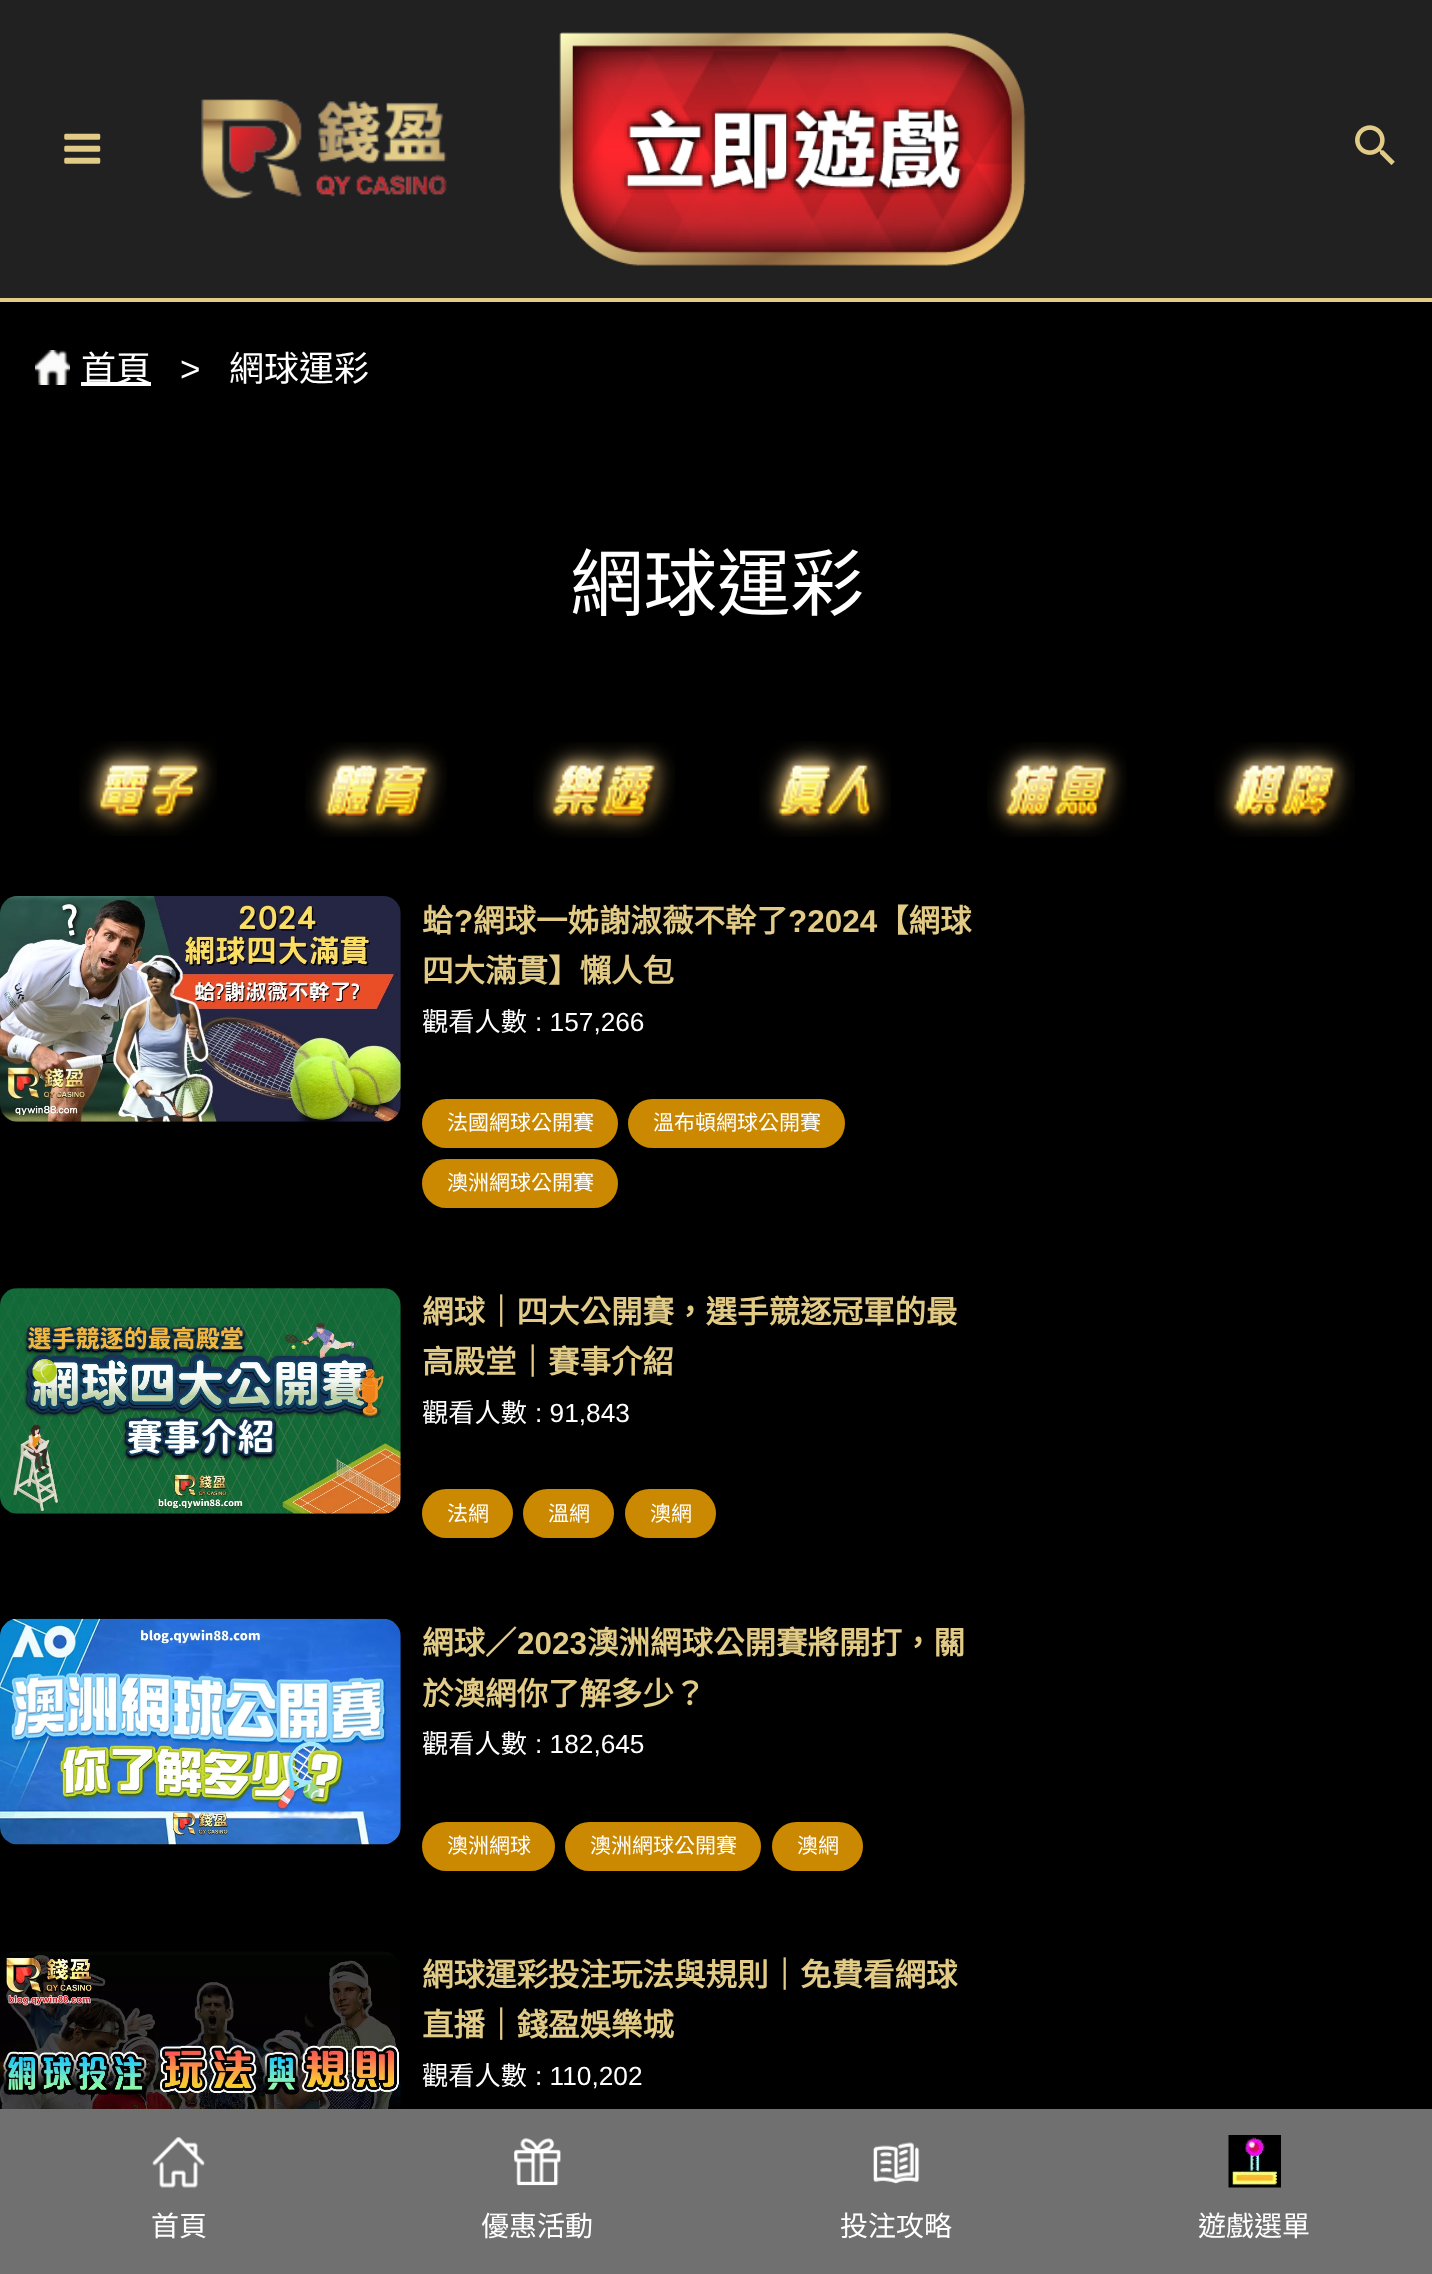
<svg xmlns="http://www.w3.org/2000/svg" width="1432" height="2274">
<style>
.a{font:35px Noto Sans CJK TC;fill:#fff}
.b{font:35px Liberation Sans;fill:#fff}
.c{font:73.5px Noto Sans CJK TC;fill:#fff}
.d{font:bold 31.5px Noto Sans CJK TC;fill:#e2cb87}
.e{font:bold 31.5px Liberation Sans;fill:#e2cb87}
.f{font:26.25px Noto Sans CJK TC;fill:#fff}
.g{font:26.25px Liberation Sans;fill:#fff}
.h{font:21px Noto Sans CJK TC;fill:#fff}
.i{font:28px Noto Sans CJK TC;fill:#fff}
</style>
<rect width="100%" height="100%" fill="#000"/>
<path fill="#212121" d="M0 0h1432v298H0z"/>
<path fill="#e2cb87" d="M0 298h1432v4H0z"/>
<image href="1.png" x="64" y="133" width="37" height="31"/>
<image href="2.png" x="201" y="99" width="246" height="100"/>
<image href="3.png" x="559" y="32" width="467" height="234"/>
<image href="4.png" x="1355" y="125" width="40" height="40"/>
<image href="5.png" x="35" y="350" width="35" height="35"/>
<path fill="#fff" d="M81 382h70v4H81z"/>
<image href="6.png" x="79" y="741" width="138" height="95"/>
<image href="7.png" x="305" y="742" width="142" height="95"/>
<image href="8.png" x="533" y="742" width="142" height="96"/>
<image href="9.png" x="759" y="741" width="132" height="96"/>
<image href="10.png" x="987" y="742" width="140" height="95"/>
<image href="11.png" x="1214" y="742" width="141" height="95"/>
<image href="12.png" x="0" y="896" width="401" height="226"/>
<rect fill="#cb8901" x="422" y="1099" width="196" height="49" rx="24.5"/>
<rect fill="#cb8901" x="628" y="1099" width="217" height="49" rx="24.5"/>
<rect fill="#cb8901" x="422" y="1159" width="196" height="49" rx="24.5"/>
<image href="13.png" x="0" y="1288" width="401" height="226"/>
<rect fill="#cb8901" x="422" y="1489" width="91" height="49" rx="24.5"/>
<rect fill="#cb8901" x="523" y="1489" width="91" height="49" rx="24.5"/>
<rect fill="#cb8901" x="625" y="1489" width="91" height="49" rx="24.5"/>
<image href="14.png" x="0" y="1618" width="401" height="227"/>
<rect fill="#cb8901" x="422" y="1822" width="133" height="49" rx="24.5"/>
<rect fill="#cb8901" x="565" y="1822" width="196" height="49" rx="24.5"/>
<rect fill="#cb8901" x="772" y="1822" width="91" height="49" rx="24.5"/>
<image href="15.png" x="0" y="1951" width="401" height="158"/>
<path fill="#707070" d="M0 2109h1432v165H0z"/>
<image href="16.png" x="152" y="2137" width="53" height="51"/>
<image href="17.png" x="514" y="2138" width="47" height="48"/>
<image href="18.png" x="873" y="2142" width="47" height="42"/>
<image href="19.png" x="1228" y="2135" width="53" height="53"/>
<text class="a" x="81" y="381">首頁</text>
<text class="b" x="180" y="381">&gt;</text>
<text class="a" x="229" y="381">網球運彩</text>
<text class="c" x="570" y="610">網球運彩</text>
<text class="d" x="422" y="932">蛤</text>
<text class="e" x="454" y="932">?</text>
<text class="d" x="473" y="932">網球一姊謝淑薇不幹了</text>
<text class="e" x="788" y="932">?2024</text>
<text class="d" x="877" y="932">【網球</text>
<text class="d" x="422" y="982">四大滿貫】懶人包</text>
<text class="f" x="422" y="1031">觀看人數</text>
<text class="g" x="535" y="1031">: 157,266</text>
<text class="h" x="447" y="1130">法國網球公開賽</text>
<text class="h" x="653" y="1130">溫布頓網球公開賽</text>
<text class="h" x="447" y="1190">澳洲網球公開賽</text>
<text class="d" x="422" y="1323">網球｜四大公開賽，選手競逐冠軍的最</text>
<text class="d" x="422" y="1373">高殿堂｜賽事介紹</text>
<text class="f" x="422" y="1422">觀看人數</text>
<text class="g" x="535" y="1422">: 91,843</text>
<text class="h" x="447" y="1521">法網</text>
<text class="h" x="548" y="1521">溫網</text>
<text class="h" x="650" y="1521">澳網</text>
<text class="d" x="422" y="1654">網球／</text>
<text class="e" x="517" y="1654">2023</text>
<text class="d" x="587" y="1654">澳洲網球公開賽將開打，關</text>
<text class="d" x="422" y="1705">於澳網你了解多少？</text>
<text class="f" x="422" y="1753">觀看人數</text>
<text class="g" x="535" y="1753">: 182,645</text>
<text class="h" x="447" y="1853">澳洲網球</text>
<text class="h" x="590" y="1853">澳洲網球公開賽</text>
<text class="h" x="797" y="1853">澳網</text>
<text class="d" x="422" y="1986">網球運彩投注玩法與規則｜免費看網球</text>
<text class="d" x="422" y="2036">直播｜錢盈娛樂城</text>
<text class="f" x="422" y="2085">觀看人數</text>
<text class="g" x="535" y="2085">: 110,202</text>
<text class="i" x="151" y="2236">首頁</text>
<text class="i" x="481" y="2236">優惠活動</text>
<text class="i" x="840" y="2236">投注攻略</text>
<text class="i" x="1198" y="2236">遊戲選單</text>
</svg>
